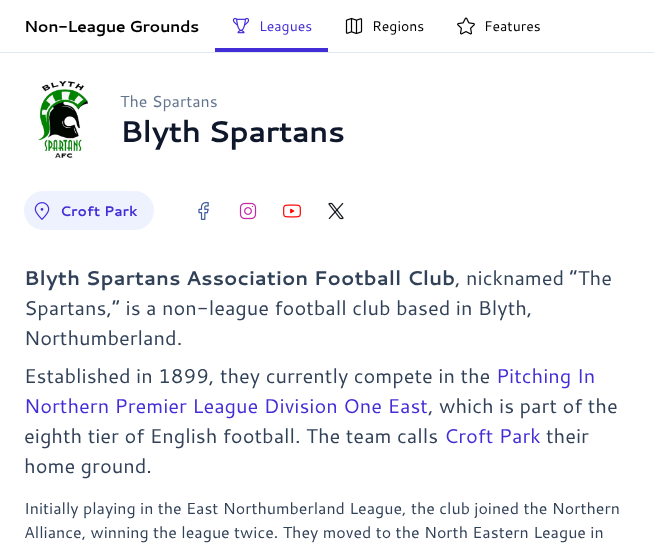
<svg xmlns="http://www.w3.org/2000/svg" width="654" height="554">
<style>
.a{font:bold 16px Cantarell;letter-spacing:-0.4px;fill:#000}
.b{font:14px Cantarell;fill:#432dd7}
.c{font:14px Cantarell;fill:#000}
.d{font:16px Cantarell;fill:#62748e}
.e{font:bold 30px Cantarell;letter-spacing:-0.75px;fill:#0f172b}
.f{font:bold 14px Cantarell;fill:#432dd7}
.g{font:bold 20px Cantarell;fill:#314158}
.h{font:20px Cantarell;fill:#314158}
.i{font:20px Cantarell;fill:#432dd7}
.j{font:16px Cantarell;fill:#314158}
</style>
<rect width="100%" height="100%" fill="#fff"/>
<path fill="#e2e8f0" d="M0 52h654v1H0z"/>
<path fill="#432dd7" d="M215 48h113v4H215z"/>
<image href="1.png" x="232" y="17" width="18" height="17"/>
<image href="2.png" x="345" y="17" width="18" height="18"/>
<image href="3.png" x="457" y="17" width="18" height="18"/>
<image href="4.png" x="38" y="81" width="50" height="77"/>
<rect fill="#eef2ff" x="24" y="191" width="130" height="39" rx="19.5"/>
<image href="5.png" x="34" y="202" width="16" height="18"/>
<image href="6.png" x="198" y="202" width="11" height="18"/>
<image href="7.png" x="239" y="202" width="18" height="18"/>
<image href="8.png" x="283" y="204" width="18" height="14"/>
<image href="9.png" x="328" y="202" width="16" height="18"/>
<text class="a" x="24" y="32">Non-League Grounds</text>
<text class="b" x="259" y="31">Leagues</text>
<text class="c" x="372" y="31">Regions</text>
<text class="c" x="484" y="31">Features</text>
<text class="d" x="120" y="107">The Spartans</text>
<text class="e" x="120" y="142">Blyth Spartans</text>
<text class="f" x="60" y="216">Croft Park</text>
<text class="g" x="24" y="285">Blyth Spartans Association Football Club</text>
<text class="h" x="455" y="285">, nicknamed “The</text>
<text class="h" x="24" y="315">Spartans,” is a non-league football club based in Blyth,</text>
<text class="h" x="24" y="345">Northumberland.</text>
<text class="h" x="24" y="383">Established in 1899, they currently compete in the</text>
<text class="i" x="496" y="383">Pitching In</text>
<text class="i" x="24" y="413">Northern Premier League Division One East</text>
<text class="h" x="428" y="413">, which is part of the</text>
<text class="h" x="24" y="443">eighth tier of English football. The team calls</text>
<text class="i" x="444" y="443">Croft Park</text>
<text class="h" x="546" y="443">their</text>
<text class="h" x="24" y="473">home ground.</text>
<text class="j" x="24" y="514">Initially playing in the East Northumberland League, the club joined the Northern</text>
<text class="j" x="24" y="538">Alliance, winning the league twice. They moved to the North Eastern League in</text>
</svg>
